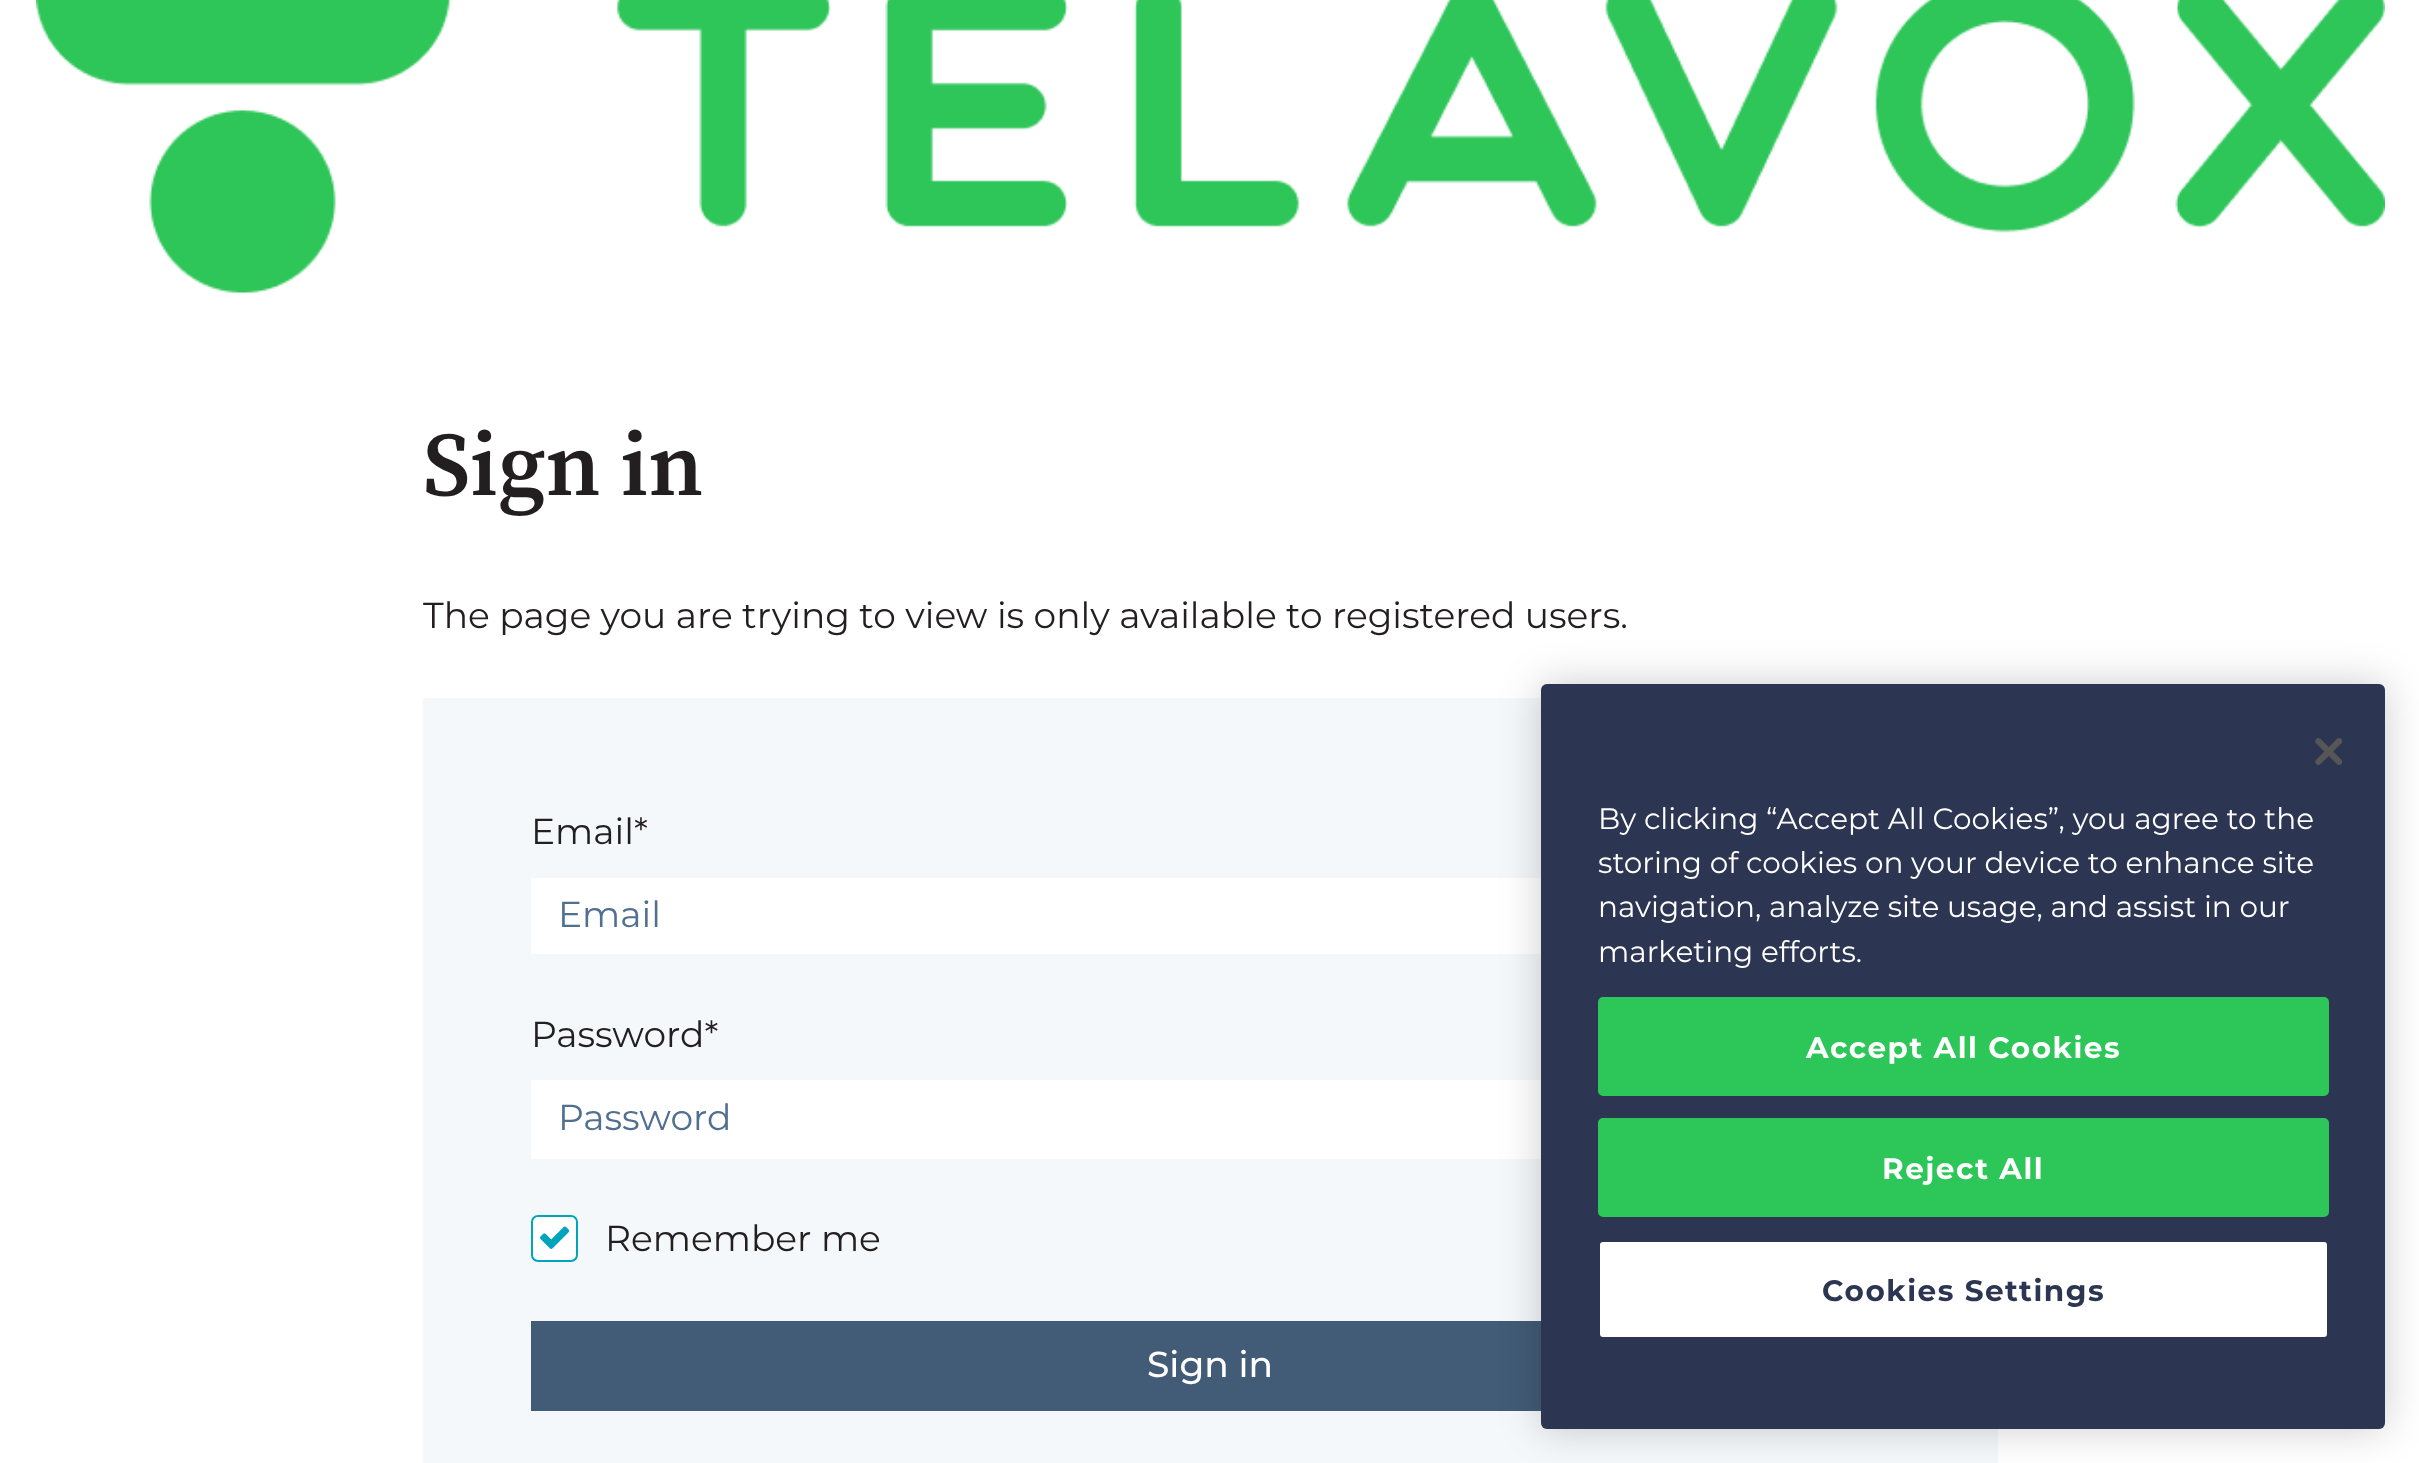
<svg xmlns="http://www.w3.org/2000/svg" width="2419" height="1463">
<style>
.a{font:600 90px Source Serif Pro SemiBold;fill:#231f20}
.b{font:36px Montserrat;fill:#231f20}
.c{font:36px Montserrat;fill:#516f90}
.d{font:500 36px Montserrat;fill:#fff}
.e{font:29.5px Montserrat;fill:#fff}
.f{font:bold 29.5px Montserrat;letter-spacing:1.5px;fill:#fff}
.g{font:bold 29.5px Montserrat;letter-spacing:1.5px;fill:#2c3551}
</style>
<rect width="100%" height="100%" fill="#fff"/>
<image href="1.png" x="36" y="0" width="2349" height="293"/>
<path fill="#f5f8fa" d="M423 698h1575v765H423z"/>
<path fill="#fff" d="M531 878h1010v76H531z"/>
<path fill="#fff" d="M531 1080h1010v79H531z"/>
<rect fill="#fff" x="531" y="1215" width="47" height="47" rx="7"/>
<image href="2.png" x="540" y="1226" width="29" height="23"/>
<rect fill="none" stroke="#00a4bd" stroke-width="2" x="532" y="1216" width="45" height="45" rx="6"/>
<path fill="#425b76" d="M531 1321h1010v90H531z"/>
<rect fill="#00000033" filter="blur(20px)" x="1541" y="684" width="844" height="745" rx="6"/>
<rect fill="#2c3551" x="1541" y="684" width="844" height="745" rx="6"/>
<image href="3.png" x="2315" y="738" width="27" height="27"/>
<rect fill="#2dc659" stroke="#2dc659" stroke-width="2" x="1599" y="998" width="729" height="97" rx="4"/>
<rect fill="#2dc659" stroke="#2dc659" stroke-width="2" x="1599" y="1119" width="729" height="97" rx="4"/>
<rect fill="#fff" stroke="#2c3551" stroke-width="2" x="1599" y="1241" width="729" height="97" rx="4"/>
<text class="a" x="423" y="495">Sign in</text>
<text class="b" x="423" y="628">The page you are trying to view is only available to registered users.</text>
<text class="b" x="531" y="844">Email*</text>
<text class="c" x="558" y="927">Email</text>
<text class="b" x="531" y="1047">Password*</text>
<text class="c" x="558" y="1130">Password</text>
<text class="b" x="605" y="1251">Remember me</text>
<text class="d" x="1147" y="1377">Sign in</text>
<text class="e" x="1598" y="829">By clicking “Accept All Cookies”, you agree to the</text>
<text class="e" x="1598" y="873">storing of cookies on your device to enhance site</text>
<text class="e" x="1598" y="917">navigation, analyze site usage, and assist in our</text>
<text class="e" x="1598" y="962">marketing efforts.</text>
<text class="f" x="1806" y="1058">Accept All Cookies</text>
<text class="f" x="1882" y="1179">Reject All</text>
<text class="g" x="1822" y="1301">Cookies Settings</text>
</svg>
